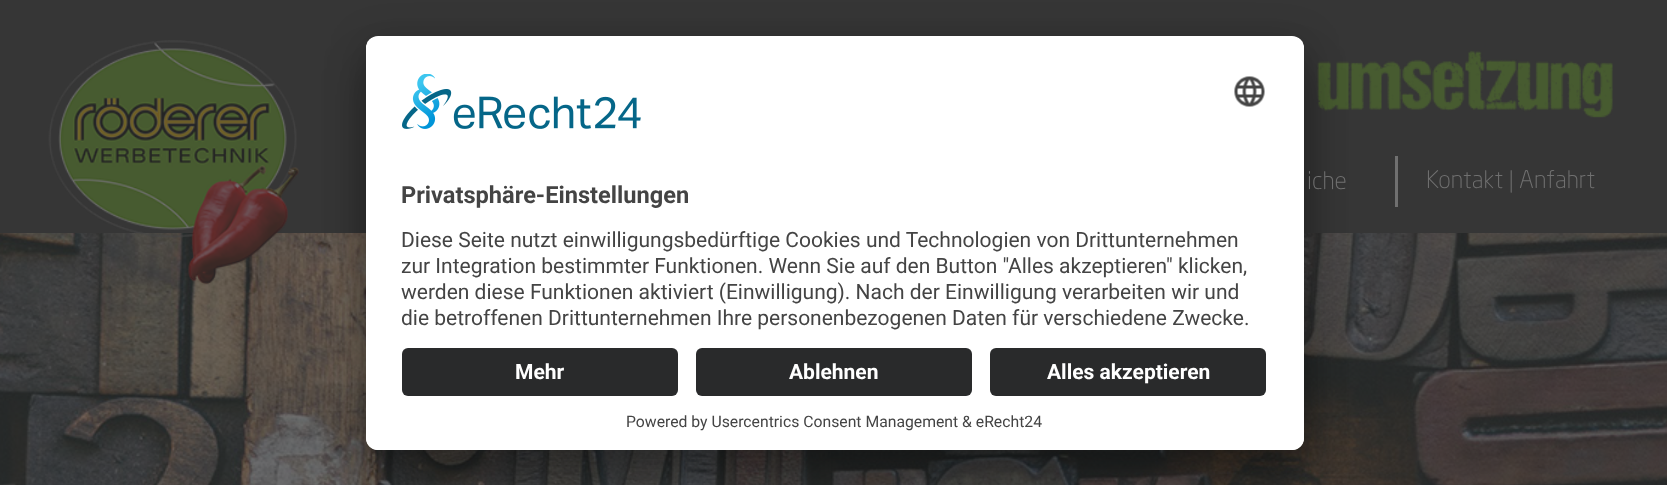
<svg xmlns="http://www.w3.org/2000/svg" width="1667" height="485">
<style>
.a{font:300 24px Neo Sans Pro;fill:#707070}
.b{font:bold 23.6px Roboto;fill:#444}
.c{font:21px Roboto;fill:#444}
.d{font:bold 21px Roboto;fill:#fff}
.e{font:15.75px Roboto;fill:#444}
</style>
<defs>
<clipPath id="clip1"><rect x="366" y="36" width="938" height="414" rx="12"/></clipPath>
<clipPath id="clip2"><path d="M378 36h914c6.5 0 12 5.5 12 12v288h-938v-288c0-6.5 5.5-12 12-12z"/></clipPath>
</defs>
<rect width="100%" height="100%" fill="#fff"/>
<path fill="#363636" d="M0 0h1667v233H0z"/>
<image href="3.png" x="0" y="233" width="1667" height="252"/>
<image href="1.png" x="48" y="40" width="251" height="245"/>
<image href="2.png" x="1316" y="50" width="297" height="68"/>
<path fill="#707070" d="M1395 156h3v51H1395z"/>
<rect fill="#0000004d" filter="blur(21px)" x="366" y="66" width="938" height="414" rx="12"/>
<rect fill="#00000038" filter="blur(19.5px)" x="366" y="44" width="938" height="414" rx="12"/>
<rect fill="#fff" x="366" y="36" width="938" height="414" rx="12"/>
<g clip-path="url(#clip1)">
<g clip-path="url(#clip2)">
<path fill="#fff" d="M366 38h938v298H366z"/>
</g>
</g>
<image href="4.png" x="402" y="74" width="239" height="55"/>
<image href="5.png" x="1234" y="76" width="31" height="31"/>
<path fill="#fff" d="M366 336h938v102c0 6.5-5.5 12-12 12h-914c-6.5 0-12-5.5-12-12z"/>
<rect fill="#292a2b" x="402" y="348" width="276" height="48" rx="6"/>
<rect fill="#292a2b" x="696" y="348" width="276" height="48" rx="6"/>
<rect fill="#292a2b" x="990" y="348" width="276" height="48" rx="6"/>
<text class="a" x="1307" y="189">iche</text>
<text class="a" x="1426" y="188">Kontakt | Anfahrt</text>
<text class="b" x="401" y="203">Privatsphäre-Einstellungen</text>
<text class="c" x="401" y="247">Diese Seite nutzt einwilligungsbedürftige Cookies und Technologien von Drittunternehmen</text>
<text class="c" x="401" y="273">zur Integration bestimmter Funktionen. Wenn Sie auf den Button "Alles akzeptieren" klicken,</text>
<text class="c" x="401" y="299">werden diese Funktionen aktiviert (Einwilligung). Nach der Einwilligung verarbeiten wir und</text>
<text class="c" x="401" y="325">die betroffenen Drittunternehmen Ihre personenbezogenen Daten für verschiedene Zwecke.</text>
<text class="d" x="515" y="379">Mehr</text>
<text class="d" x="789" y="379">Ablehnen</text>
<text class="d" x="1047" y="379">Alles akzeptieren</text>
<text class="e" x="626" y="427">Powered by Usercentrics Consent Management &amp; eRecht24</text>
</svg>
